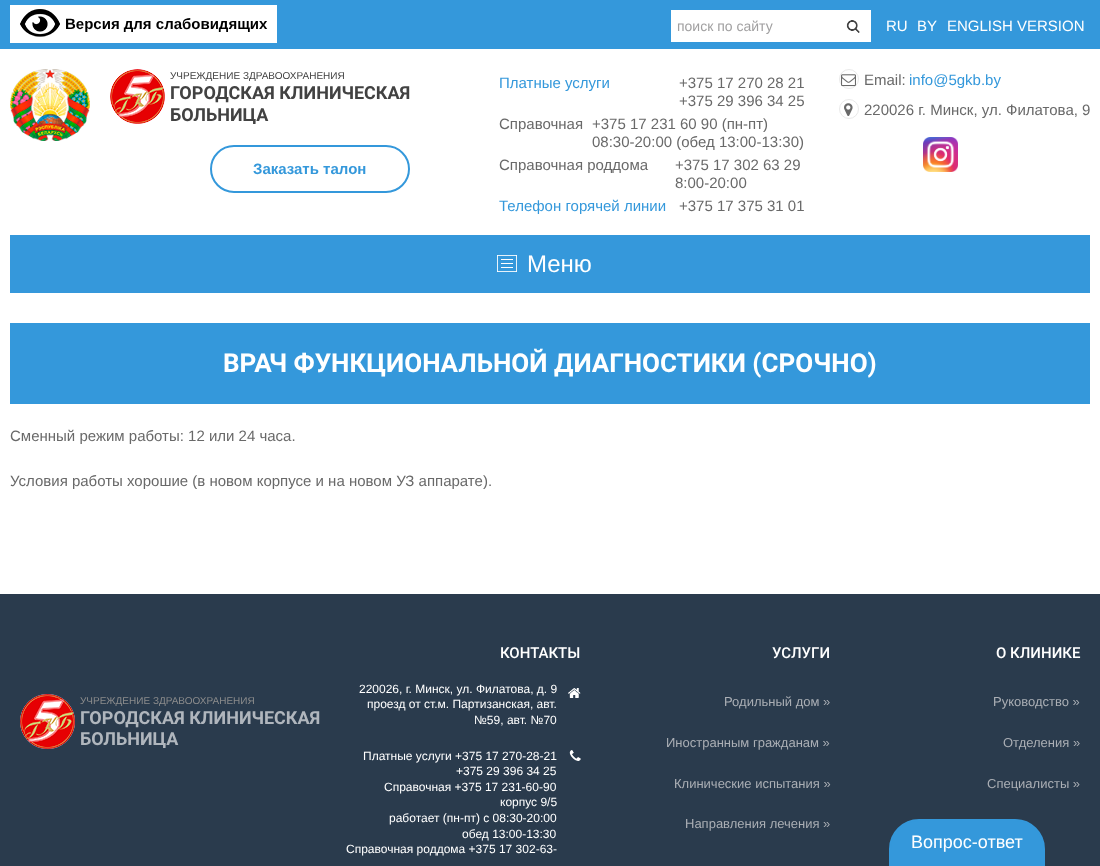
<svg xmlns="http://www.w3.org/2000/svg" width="1100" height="866">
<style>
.a{font:bold 15px Liberation Sans;fill:#000}
.b{font:14px Liberation Sans;fill:#a1a0a1}
.c{font:15px Liberation Sans;fill:#fff}
.d{font:10px Liberation Sans;fill:#424242}
.e{font:bold 18px Roboto;fill:#424242}
.f{font:bold 15px Liberation Sans;fill:#3498db}
.g{font:15px Liberation Sans;fill:#3498db}
.h{font:15px Liberation Sans;fill:#696969}
.i{font:24px Liberation Sans;fill:#fff}
.j{font:bold 26px Roboto;fill:#fff}
.k{font:10px Liberation Sans;fill:#8c8c8c}
.l{font:bold 18px Roboto;fill:#b0b6bd}
.m{font:500 15px Roboto;fill:#fff}
.n{font:12px Liberation Sans;fill:#fff}
.o{font:13px Liberation Sans;fill:#abafb5}
.p{font:18px Liberation Sans;fill:#fff}
</style>
<rect width="100%" height="100%" fill="#fff"/>
<path fill="#3498db" d="M0 0h1100v49H0z"/>
<path fill="#fff" d="M10 5h267v38H10z"/>
<image href="1.png" x="20" y="9" width="40" height="28"/>
<path fill="#fff" d="M671 10h200v32H671z"/>
<image href="2.png" x="846" y="20" width="14" height="13"/>
<image href="3.png" x="10" y="69" width="80" height="72"/>
<image href="4.png" x="110" y="69" width="55" height="55"/>
<rect fill="none" stroke="#3498db" stroke-width="2" x="211" y="146" width="198" height="46" rx="23"/>
<circle fill="none" stroke="#e9e9e9" cx="849" cy="79" r="9.5"/>
<image href="5.png" x="841" y="74" width="15" height="13"/>
<circle fill="none" stroke="#e9e9e9" cx="849" cy="109" r="9.5"/>
<image href="6.png" x="844" y="103" width="9" height="13"/>
<image href="7.png" x="923" y="137" width="35" height="35"/>
<path fill="#3598db" d="M10 235h1080v58H10z"/>
<image href="8.png" x="497" y="255" width="20" height="17"/>
<path fill="#3498db" d="M10 323h1080v81H10z"/>
<path fill="#2a3b4d" d="M0 594h1100v272H0z"/>
<image href="9.png" x="20" y="694" width="55" height="55"/>
<image href="10.png" x="568" y="688" width="13" height="10"/>
<image href="11.png" x="569" y="750" width="12" height="11"/>
<path fill="#3498db" stroke="#3498db" stroke-width="2" d="M919 820h96c16 0 29 13 29 29v16h-154v-16c0-16 13-29 29-29z"/>
<text class="a" x="65" y="29">Версия для слабовидящих</text>
<text class="b" x="677" y="31">поиск по сайту</text>
<text class="c" x="886" y="31">RU</text>
<text class="c" x="917" y="31">BY</text>
<text class="c" x="947" y="31">ENGLISH VERSION</text>
<text class="d" x="170" y="79">УЧРЕЖДЕНИЕ ЗДРАВООХРАНЕНИЯ</text>
<text class="e" x="170" y="99">ГОРОДСКАЯ КЛИНИЧЕСКАЯ</text>
<text class="e" x="170" y="121">БОЛЬНИЦА</text>
<text class="f" x="253" y="174">Заказать талон</text>
<text class="g" x="499" y="88">Платные услуги</text>
<text class="h" x="679" y="88">+375 17 270 28 21</text>
<text class="h" x="679" y="106">+375 29 396 34 25</text>
<text class="h" x="499" y="129">Справочная</text>
<text class="h" x="592" y="129">+375 17 231 60 90 (пн-пт)</text>
<text class="h" x="592" y="147">08:30-20:00 (обед 13:00-13:30)</text>
<text class="h" x="499" y="170">Справочная роддома</text>
<text class="h" x="675" y="170">+375 17 302 63 29</text>
<text class="h" x="675" y="188">8:00-20:00</text>
<text class="g" x="499" y="211">Телефон горячей линии</text>
<text class="h" x="679" y="211">+375 17 375 31 01</text>
<text class="h" x="864" y="85">Email:</text>
<text class="g" x="909" y="85">info@5gkb.by</text>
<text class="h" x="864" y="115">220026 г. Минск, ул. Филатова, 9</text>
<text class="i" x="527" y="272">Меню</text>
<text class="j" x="223" y="372">ВРАЧ ФУНКЦИОНАЛЬНОЙ ДИАГНОСТИКИ (СРОЧНО)</text>
<text class="h" x="10" y="441">Сменный режим работы: 12 или 24 часа.</text>
<text class="h" x="10" y="486">Условия работы хорошие (в новом корпусе и на новом УЗ аппарате).</text>
<text class="k" x="80" y="704">УЧРЕЖДЕНИЕ ЗДРАВООХРАНЕНИЯ</text>
<text class="l" x="80" y="724">ГОРОДСКАЯ КЛИНИЧЕСКАЯ</text>
<text class="l" x="80" y="745">БОЛЬНИЦА</text>
<text class="m" x="500" y="658">КОНТАКТЫ</text>
<text class="n" x="359" y="693">220026, г. Минск, ул. Филатова, д. 9</text>
<text class="n" x="367" y="708">проезд от ст.м. Партизанская, авт.</text>
<text class="n" x="474" y="724">№59, авт. №70</text>
<text class="n" x="363" y="760">Платные услуги +375 17 270-28-21</text>
<text class="n" x="456" y="775">+375 29 396 34 25</text>
<text class="n" x="384" y="791">Справочная +375 17 231-60-90</text>
<text class="n" x="500" y="806">корпус 9/5</text>
<text class="n" x="389" y="822">работает (пн-пт) с 08:30-20:00</text>
<text class="n" x="462" y="838">обед 13:00-13:30</text>
<text class="n" x="346" y="853">Справочная роддома +375 17 302-63-</text>
<text class="m" x="772" y="658">УСЛУГИ</text>
<text class="o" x="724" y="706">Родильный дом »</text>
<text class="o" x="666" y="747">Иностранным гражданам »</text>
<text class="o" x="674" y="788">Клинические испытания »</text>
<text class="o" x="685" y="828">Направления лечения »</text>
<text class="m" x="996" y="658">О КЛИНИКЕ</text>
<text class="o" x="993" y="706">Руководство »</text>
<text class="o" x="1003" y="747">Отделения »</text>
<text class="o" x="987" y="788">Специалисты »</text>
<text class="p" x="911" y="848">Вопрос-ответ</text>
</svg>
